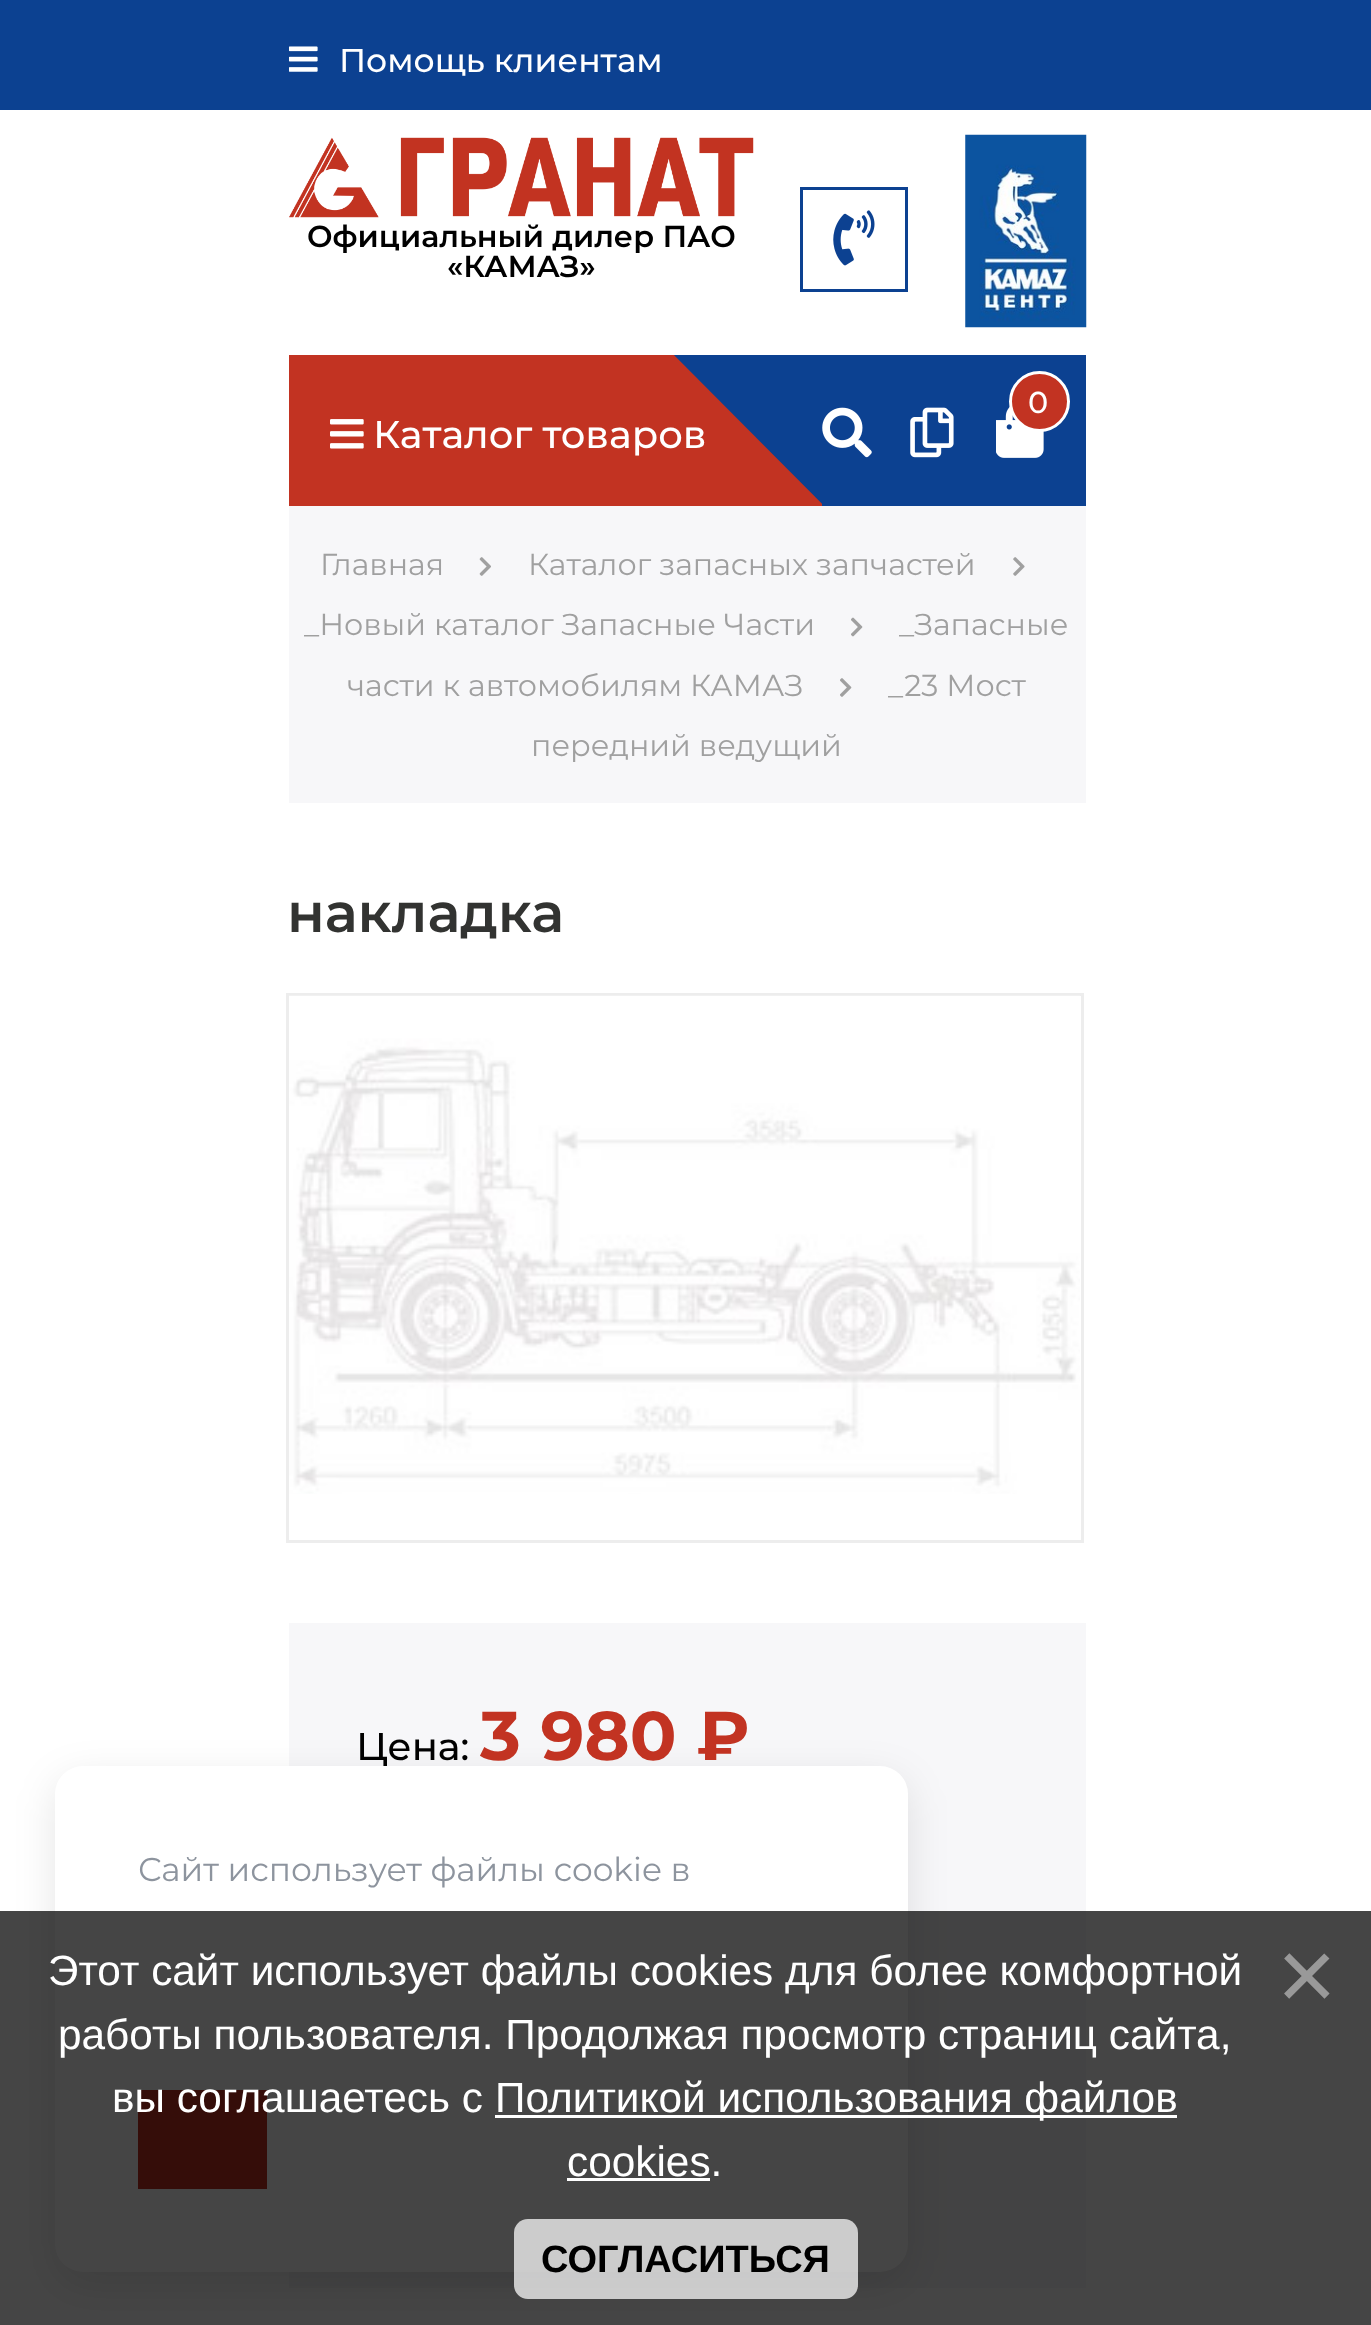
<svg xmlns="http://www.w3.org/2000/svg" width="1371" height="2325">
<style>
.a{font:500 33px Montserrat;fill:#fff}
.b{font:600 30.25px Montserrat;fill:#000}
.c{font:500 30.25px Montserrat;fill:#fff}
.d{font:500 38.5px Montserrat;fill:#fff}
.e{font:30.25px Montserrat;fill:#a0a0a0}
.f{font:600 55px Montserrat;fill:#323331}
.g{font:500 38.5px Montserrat;fill:#000}
.h{font:bold 69px Montserrat;fill:#c23322}
.i{font:33px Montserrat;fill:#8d949e}
.j{font:42.35px Liberation Sans;fill:#fff}
.k{font:102px Liberation Sans;fill:#999}
.l{font:bold 38px Liberation Sans;fill:#000}
</style>
<defs>
<clipPath id="clip1"><path d="M671 355h151v151H671z"/></clipPath>
</defs>
<rect width="100%" height="100%" fill="#fff"/>
<path fill="#0c4191" d="M0 0h1371v110H0z"/>
<image href="1.png" x="289" y="46" width="29" height="26"/>
<image href="2.png" x="289" y="137" width="465" height="81"/>
<path fill="none" stroke="#0c4191" stroke-width="3" d="M801.5 188.5h105v102H801.5z"/>
<image href="3.png" x="833" y="210" width="42" height="56"/>
<image href="4.png" x="965" y="134" width="122" height="194"/>
<path fill="#c23322" d="M289 355h533v151H289z"/>
<path fill="#0c4191" d="M822 355h264v151H822z"/>
<image href="5.png" x="996" y="406" width="48" height="52"/>
<circle fill="#c23322" stroke="#fff" stroke-width="3" cx="1039.5" cy="401.5" r="29"/>
<image href="6.png" x="822" y="407" width="50" height="51"/>
<image href="7.png" x="910" y="407" width="44" height="51"/>
<image href="8.png" x="330" y="419" width="34" height="30"/>
<path fill="#f7f7f9" d="M289 506h797v297H289z"/>
<image href="9.png" x="479" y="557" width="12" height="19"/>
<image href="10.png" x="1013" y="557" width="12" height="19"/>
<image href="11.png" x="851" y="617" width="12" height="20"/>
<image href="12.png" x="840" y="678" width="12" height="19"/>
<path fill="none" stroke="#ededed" stroke-width="3" d="M287.5 994.5h795v547H287.5z"/>
<image href="13.png" x="289" y="995" width="791" height="499"/>
<path fill="#f7f7f9" d="M289 1623h797v665H289z"/>
<rect fill="#0000001a" filter="blur(20.5px)" x="55" y="1779" width="853" height="506" rx="28"/>
<text class="a" x="339" y="72">Помощь клиентам</text>
<text class="b" x="307" y="247">Официальный дилер ПАО</text>
<text class="b" x="447" y="277">«КАМАЗ»</text>
<text class="c" x="1028" y="413">0</text>
<text class="d" x="373" y="448">Каталог товаров</text>
<g clip-path="url(#clip1)">
<path fill="#0c4191" d="M805 214l194 195l-136 136l-194-195z"/>
</g>
<text class="e" x="320" y="575">Главная</text>
<text class="e" x="528" y="575">Каталог запасных запчастей</text>
<text class="e" x="304" y="635">_Новый каталог Запасные Части</text>
<text class="e" x="899" y="635">_Запасные</text>
<text class="e" x="347" y="696">части к автомобилям КАМАЗ</text>
<text class="e" x="888" y="696">_23 Мост</text>
<text class="e" x="531" y="756">передний ведущий</text>
<text class="f" x="287" y="932">накладка</text>
<text class="g" x="356" y="1760">Цена:</text>
<text class="h" x="480" y="1760">3 980 ₽</text>
<rect fill="#fff" x="55" y="1766" width="853" height="506" rx="28"/>
<text class="i" x="138" y="1881">Сайт использует файлы cookie в</text>
<path fill="#c23322" d="M138 2090h129v99H138z"/>
<path fill="#000000ba" d="M0 1911h1371v414H0z"/>
<text class="j" x="48" y="1985">Этот сайт использует файлы cookies для более комфортной</text>
<text class="j" x="58" y="2049">работы пользователя. Продолжая просмотр страниц сайта,</text>
<text class="j" x="112" y="2112">вы соглашаетесь с</text>
<path fill="#fff" d="M495 2115h682v3H495z"/>
<text class="j" x="495" y="2112">Политикой использования файлов</text>
<text class="j" x="567" y="2176">cookies.</text>
<path fill="#fff" d="M567 2178h143v3H567z"/>
<text class="k" x="1277" y="2010">×</text>
<rect fill="#ffffffba" x="514" y="2219" width="344" height="80" rx="14"/>
<text class="l" x="541" y="2272">СОГЛАСИТЬСЯ</text>
</svg>
